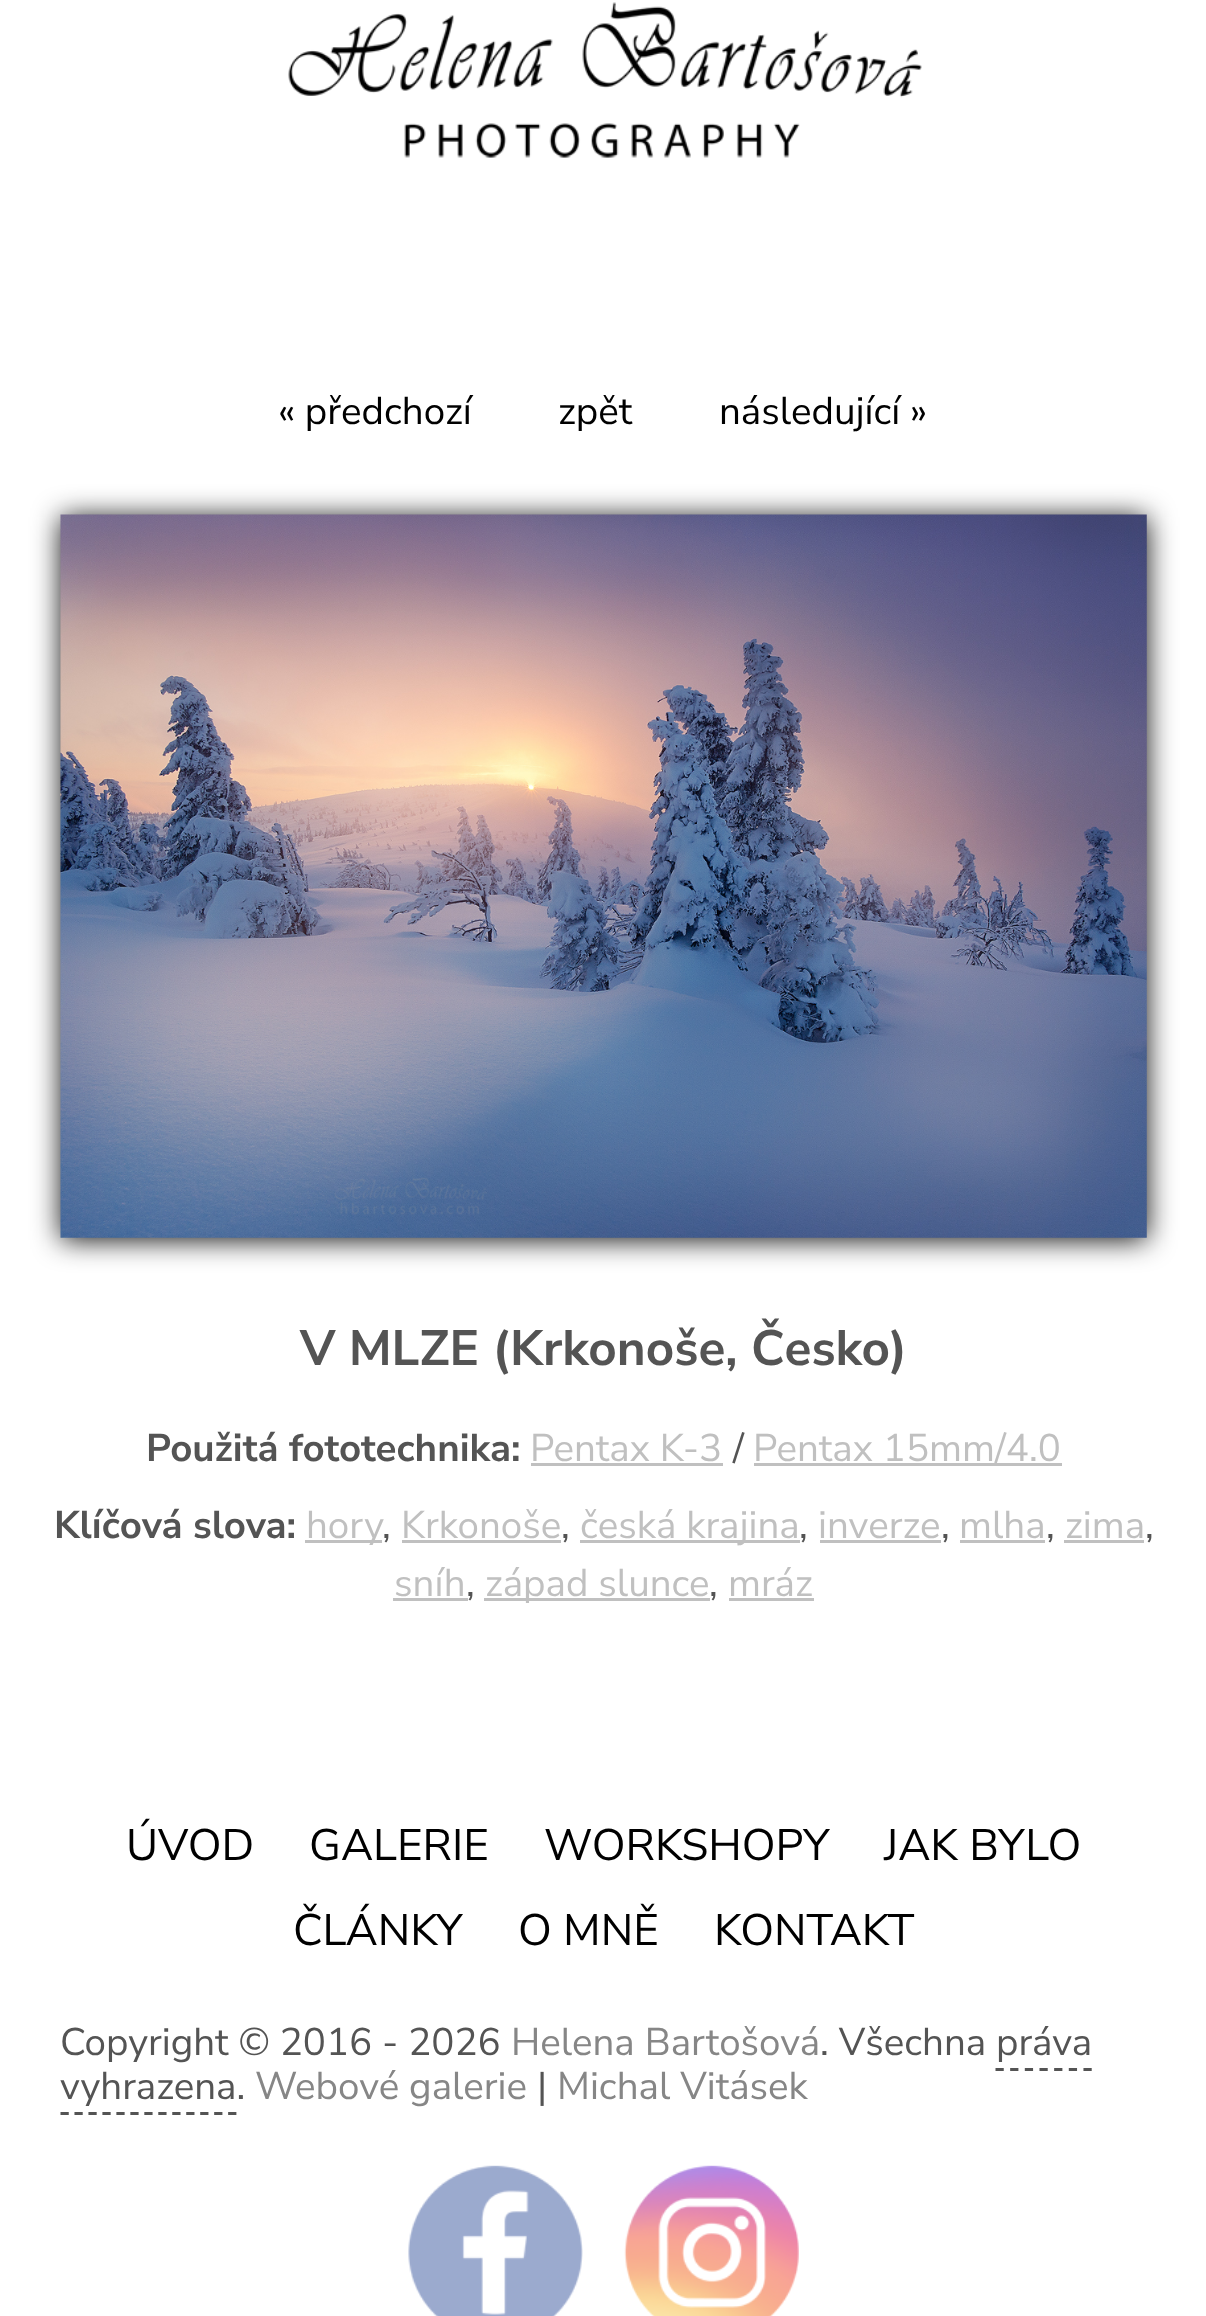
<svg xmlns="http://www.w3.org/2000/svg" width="1206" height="2316">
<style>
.a{font:38.5px Nunito Sans;fill:#000}
.b{font:bold 49.5px Nunito Sans;fill:#545454}
.c{font:bold 38.5px Nunito Sans;fill:#545454}
.d{font:38.5px Nunito Sans;fill:#c0c0c0}
.e{font:38.5px Nunito Sans;fill:#545454}
.f{font:44px Nunito Sans;fill:#000}
.g{font:38.5px Nunito Sans;fill:#868686}
</style>
<rect width="100%" height="100%" fill="#fff"/>
<image href="1.png" x="288" y="2" width="634" height="156"/>
<path fill="#0f0f0f" filter="blur(14px)" d="M61 517h1086v723H61z"/>
<image href="2.png" x="60" y="514" width="1087" height="724"/>
<path fill="#c0c0c0" d="M531 1463h192v3H531z"/>
<path fill="#c0c0c0" d="M754 1463h308v3H754z"/>
<path fill="#c0c0c0" d="M305 1540h77v3H305z"/>
<path fill="#c0c0c0" d="M402 1540h159v3H402z"/>
<path fill="#c0c0c0" d="M580 1540h220v3H580z"/>
<path fill="#c0c0c0" d="M820 1540h121v3H820z"/>
<path fill="#c0c0c0" d="M960 1540h85v3H960z"/>
<path fill="#c0c0c0" d="M1064 1540h80v3H1064z"/>
<path fill="#c0c0c0" d="M393 1598h75v3H393z"/>
<path fill="#c0c0c0" d="M484 1598h226v3H484z"/>
<path fill="#c0c0c0" d="M729 1598h85v3H729z"/>
<path fill="none" stroke="#545454" stroke-width="2.8" stroke-dasharray="8.25 6.41" d="M995.5 2069.5h96.5"/>
<path fill="none" stroke="#545454" stroke-width="2.8" stroke-dasharray="8.25 5.72" d="M60.5 2113.5h176"/>
<image href="3.png" x="408" y="2165" width="175" height="151"/>
<image href="4.png" x="624" y="2165" width="175" height="151"/>
<text class="a" x="278" y="424">« předchozí</text>
<text class="a" x="558" y="424">zpět</text>
<text class="a" x="719" y="424">následující »</text>
<text class="b" x="300" y="1365">V MLZE (Krkonoše, Česko)</text>
<text class="c" x="146" y="1461">Použitá fototechnika:</text>
<text class="d" x="530" y="1461">Pentax K-3</text>
<text class="e" x="733" y="1461">/</text>
<text class="d" x="753" y="1461">Pentax 15mm/4.0</text>
<text class="c" x="54" y="1538">Klíčová slova:</text>
<text class="d" x="306" y="1538">hory</text>
<text class="e" x="382" y="1538">,</text>
<text class="d" x="401" y="1538">Krkonoše</text>
<text class="e" x="561" y="1538">,</text>
<text class="d" x="580" y="1538">česká krajina</text>
<text class="e" x="799" y="1538">,</text>
<text class="d" x="818" y="1538">inverze</text>
<text class="e" x="941" y="1538">,</text>
<text class="d" x="959" y="1538">mlha</text>
<text class="e" x="1046" y="1538">,</text>
<text class="d" x="1065" y="1538">zima</text>
<text class="e" x="1145" y="1538">,</text>
<text class="d" x="394" y="1596">sníh</text>
<text class="e" x="466" y="1596">,</text>
<text class="d" x="485" y="1596">západ slunce</text>
<text class="e" x="709" y="1596">,</text>
<text class="d" x="728" y="1596">mráz</text>
<text class="f" x="126" y="1860">ÚVOD</text>
<text class="f" x="309" y="1860">GALERIE</text>
<text class="f" x="544" y="1860">WORKSHOPY</text>
<text class="f" x="884" y="1860">JAK BYLO</text>
<text class="f" x="293" y="1945">ČLÁNKY</text>
<text class="f" x="518" y="1945">O MNĚ</text>
<text class="f" x="714" y="1945">KONTAKT</text>
<text class="e" x="60" y="2055">Copyright © 2016 - 2026</text>
<text class="g" x="511" y="2055">Helena Bartošová</text>
<text class="e" x="820" y="2055">. Všechna práva</text>
<text class="e" x="60" y="2099">vyhrazena.</text>
<text class="g" x="255" y="2099">Webové galerie</text>
<text class="e" x="537" y="2099">|</text>
<text class="g" x="557" y="2099">Michal Vitásek</text>
</svg>
